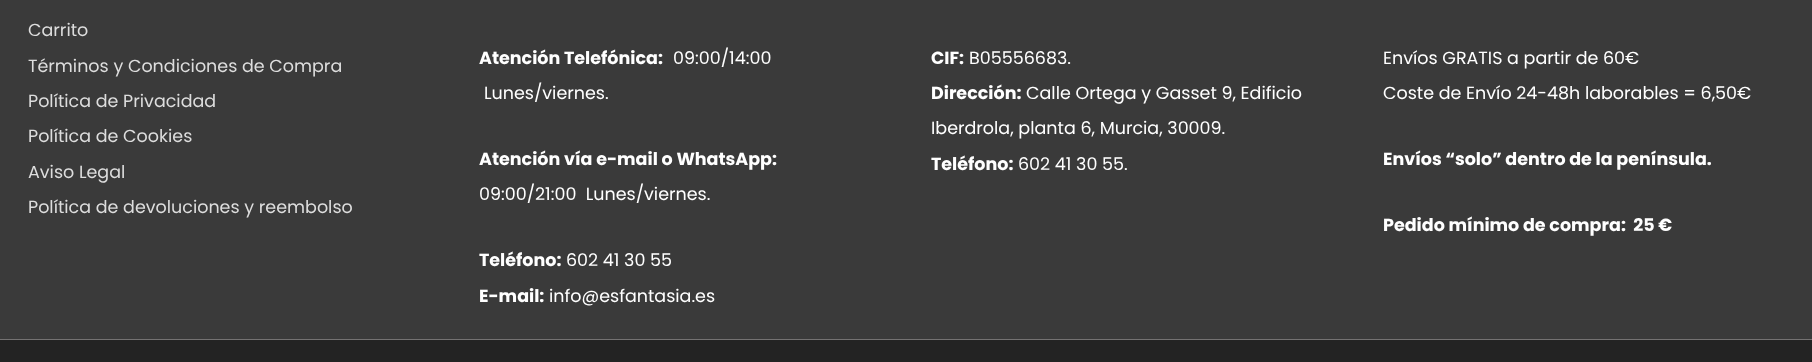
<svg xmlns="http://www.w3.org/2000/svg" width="1812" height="362">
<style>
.a{font:17.5px Poppins;fill:#ddd}
.b{font:bold 17.5px Poppins;fill:#fff}
.c{font:17.5px Poppins;fill:#fff}
</style>
<rect width="100%" height="100%" fill="#3a3a3a"/>
<path fill="#747272" d="M0 339h1812v1H0z"/>
<path fill="#232323" d="M0 340h1812v22H0z"/>
<text class="a" x="28" y="36">Carrito</text>
<text class="a" x="28" y="72">Términos y Condiciones de Compra</text>
<text class="a" x="28" y="107">Política de Privacidad</text>
<text class="a" x="28" y="142">Política de Cookies</text>
<text class="a" x="28" y="178">Aviso Legal</text>
<text class="a" x="28" y="213">Política de devoluciones y reembolso</text>
<text class="b" x="479" y="64">Atención Telefónica:</text>
<text class="c" x="673" y="64">09:00/14:00</text>
<text class="c" x="484" y="99">Lunes/viernes.</text>
<text class="b" x="479" y="165">Atención vía e-mail o WhatsApp:</text>
<text class="c" xml:space="preserve" x="479" y="200">09:00/21:00  Lunes/viernes.</text>
<text class="b" x="479" y="266">Teléfono:</text>
<text class="c" x="566" y="266">602 41 30 55</text>
<text class="b" x="479" y="302">E-mail:</text>
<text class="c" x="549" y="302">info@esfantasia.es</text>
<text class="b" x="931" y="64">CIF:</text>
<text class="c" x="969" y="64">B05556683.</text>
<text class="b" x="931" y="99">Dirección:</text>
<text class="c" x="1026" y="99">Calle Ortega y Gasset 9, Edificio</text>
<text class="c" x="931" y="134">Iberdrola, planta 6, Murcia, 30009.</text>
<text class="b" x="931" y="170">Teléfono:</text>
<text class="c" x="1018" y="170">602 41 30 55.</text>
<text class="c" x="1383" y="64">Envíos GRATIS a partir de 60€</text>
<text class="c" x="1383" y="99">Coste de Envío 24-48h laborables = 6,50€</text>
<text class="b" x="1383" y="165">Envíos “solo” dentro de la península.</text>
<text class="b" xml:space="preserve" x="1383" y="231">Pedido mínimo de compra:  25 €</text>
</svg>
